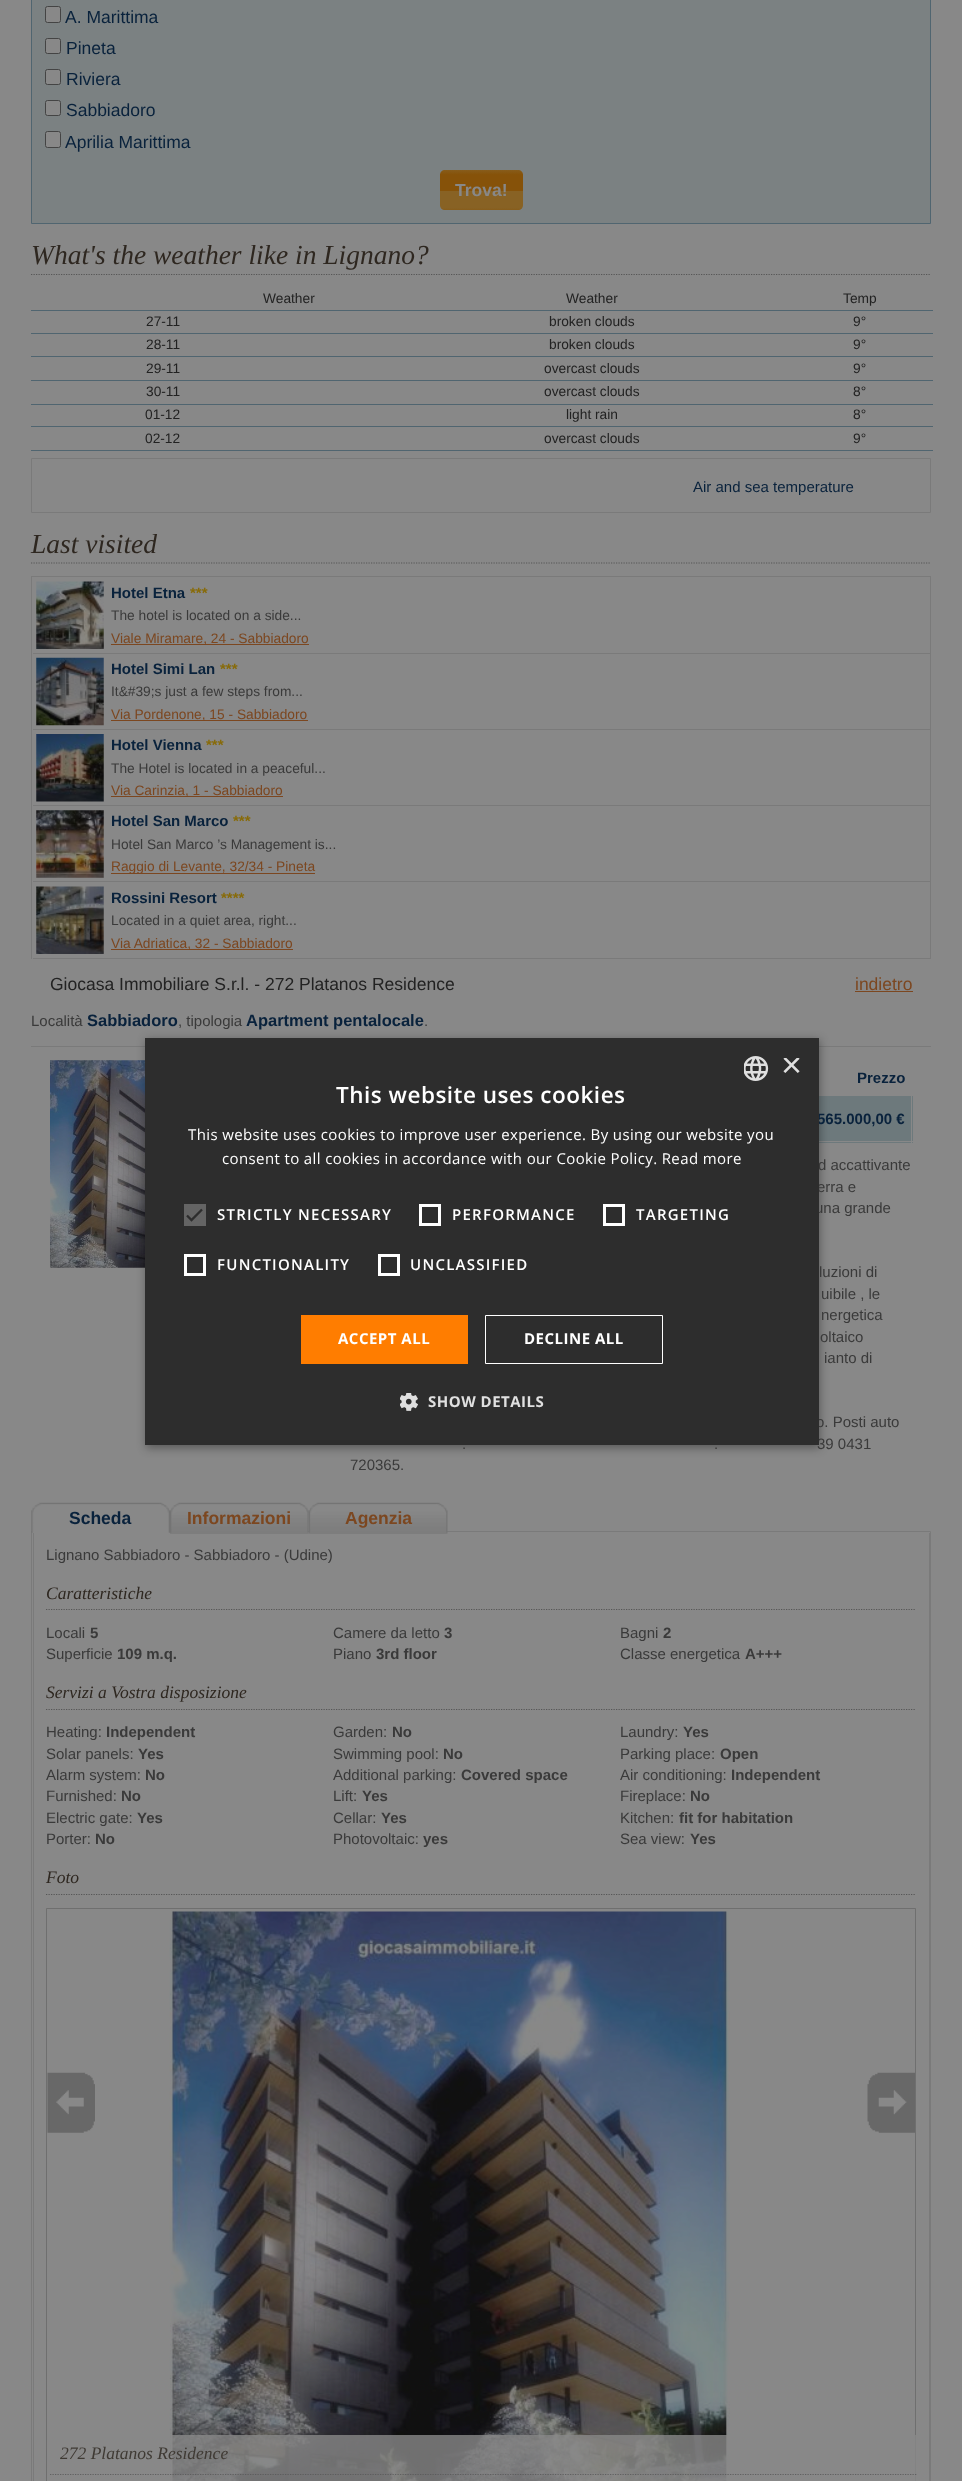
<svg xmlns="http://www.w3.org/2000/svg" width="962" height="2481">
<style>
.a{font:17.5px Liberation Sans;fill:#09223c}
.b{font:bold 17.5px Liberation Sans;fill:#888}
.c{font:italic 27.5px Liberation Serif;fill:#2e2720}
.d{font:13.75px Liberation Sans;fill:#222}
.e{font:15px Liberation Sans;fill:#09223c}
.f{font:bold 15px Liberation Sans;fill:#09223c}
.g{font:bold 15px Liberation Sans;fill:#886b09}
.h{font:13.75px Liberation Sans;fill:#3a3a3a}
.i{font:13.75px Liberation Sans;fill:#7c4720}
.j{font:17.5px Liberation Sans;fill:#222}
.k{font:17.5px Liberation Sans;fill:#7c4720}
.l{font:15px Liberation Sans;fill:#3a3a3a}
.m{font:bold 16.5px Liberation Sans;fill:#09223c}
.n{font:bold 17.5px Liberation Sans;fill:#09223c}
.o{font:bold 17.5px Liberation Sans;fill:#7c4720}
.p{font:italic 17.5px Liberation Serif;fill:#2e2720}
.q{font:bold 15px Liberation Sans;fill:#3a3a3a}
.r{font:italic 17.5px Liberation Serif;fill:#3f3a34}
.s{font:36px Liberation Sans;fill:#e0e0e0}
.t{font:600 22.5px Open Sans;letter-spacing:0.5px;fill:#fff}
.u{font:15px Open Sans;letter-spacing:0.38px;fill:#fff}
.v{font:600 15px Open Sans;letter-spacing:1.25px;fill:#fff}
.w{font:bold 15px Open Sans;letter-spacing:0.5px;fill:#fff}
.x{font:bold 15px Open Sans;letter-spacing:0.5px;fill:#e0e0e0}
</style>
<defs>
<linearGradient id="g1" gradientUnits="userSpaceOnUse" x1="481" y1="151" x2="481" y2="191"><stop offset="0" stop-color="#886224"/><stop offset="0.42" stop-color="#886224"/><stop offset="0.59" stop-color="#865209"/><stop offset="1" stop-color="#865209"/></linearGradient>
<linearGradient id="g2" gradientUnits="userSpaceOnUse" x1="481" y1="191" x2="481" y2="231"><stop offset="0" stop-color="#886224"/><stop offset="0.42" stop-color="#886224"/><stop offset="0.59" stop-color="#865209"/><stop offset="1" stop-color="#865209"/></linearGradient>
<clipPath id="clip1"><path d="M781 1058h19v18H781z"/></clipPath>
</defs>
<rect width="100%" height="100%" fill="#888"/>
<path fill="#7b8182" stroke="#506570" d="M31.5 -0.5h899v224H31.5z"/>
<rect fill="#888" stroke="#444" x="45.5" y="6.5" width="15" height="16" rx="2"/>
<rect fill="#888" stroke="#444" x="45.5" y="38.5" width="15" height="15" rx="2"/>
<rect fill="#888" stroke="#444" x="45.5" y="69.5" width="15" height="15" rx="2"/>
<rect fill="#888" stroke="#444" x="45.5" y="100.5" width="15" height="15" rx="2"/>
<rect fill="#888" stroke="#444" x="45.5" y="131.5" width="15" height="16" rx="2"/>
<path fill="url(#g1)" d="M445 170h73c3 0 5 2 5 5v16h-83v-16c0-3 2-5 5-5z"/>
<path fill="url(#g2)" d="M440 191h83v14c0 3-2 5-5 5h-73c-3 0-5-2-5-5z"/>
<path fill="none" stroke="#565656" stroke-width="1.2" stroke-dasharray="1.25 1.25" d="M31 274.5h900"/>
<path fill="#506570" d="M31 310h902v1H31z"/>
<path fill="#506570" d="M31 333h902v1H31z"/>
<path fill="#506570" d="M31 356h902v1H31z"/>
<path fill="#506570" d="M31 380h902v1H31z"/>
<path fill="#506570" d="M31 404h902v1H31z"/>
<path fill="#506570" d="M31 426h902v1H31z"/>
<path fill="#506570" d="M31 450h902v1H31z"/>
<path fill="none" stroke="#7a7a7a" d="M31.5 458.5h899v54H31.5z"/>
<path fill="none" stroke="#565656" stroke-width="1.2" stroke-dasharray="1.25 1.25" d="M31 563h900"/>
<path fill="#7a7a7a" d="M31 576h900v1H31z"/>
<path fill="#7a7a7a" d="M930 576h1v383H930z"/>
<path fill="#7a7a7a" d="M31 576h1v383H31z"/>
<path fill="#7a7a7a" d="M33 653h897v1H33z"/>
<image href="1.png" x="36" y="581" width="68" height="68"/>
<path fill="#7c4720" d="M111 644h198v1H111z"/>
<path fill="#7a7a7a" d="M33 729h897v1H33z"/>
<image href="2.png" x="36" y="657" width="68" height="69"/>
<path fill="#7c4720" d="M111 720h197v1H111z"/>
<path fill="#7a7a7a" d="M33 805h897v1H33z"/>
<image href="3.png" x="36" y="734" width="68" height="68"/>
<path fill="#7c4720" d="M111 796h172v1H111z"/>
<path fill="#7a7a7a" d="M33 881h897v1H33z"/>
<image href="4.png" x="36" y="810" width="68" height="68"/>
<path fill="#7c4720" d="M111 873h204v1H111z"/>
<path fill="#7a7a7a" d="M33 958h897v1H33z"/>
<image href="5.png" x="36" y="886" width="68" height="68"/>
<path fill="#7c4720" d="M111 949h182v1H111z"/>
<path fill="#7c4720" d="M855 991h58v1H855z"/>
<path fill="#7a7a7a" d="M31 1046h900v1H31z"/>
<image href="6.png" x="50" y="1060" width="95" height="208"/>
<path fill="#6d797c" d="M819 1096h94v47H819z"/>
<path fill="#888" d="M911 1095h1v48H911z"/>
<path fill="#888" d="M819 1141h94v1H819z"/>
<path fill="none" stroke="#7a7a7a" d="M31.5 1531.5h899v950H31.5z"/>
<image href="7.png" x="31" y="1502" width="139" height="31"/>
<image href="8.png" x="170" y="1502" width="139" height="32"/>
<image href="9.png" x="309" y="1502" width="139" height="32"/>
<path fill="#7a7a7a" d="M929 1533h1v948H929z"/>
<path fill="#7a7a7a" d="M33 1533h1v948H33z"/>
<path fill="none" stroke="#565656" stroke-width="1.2" stroke-dasharray="1.25 1.25" d="M46 1609.5h870"/>
<path fill="none" stroke="#565656" stroke-width="1.2" stroke-dasharray="1.25 1.25" d="M46 1709.5h870"/>
<path fill="none" stroke="#565656" stroke-width="1.2" stroke-dasharray="1.25 1.25" d="M46 1894.5h870"/>
<path fill="none" stroke="#6f6f6f" d="M46.5 1908.5h869v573H46.5z"/>
<image href="10.png" x="47" y="2072" width="48" height="61"/>
<image href="11.png" x="169" y="1911" width="561" height="570"/>
<image href="12.png" x="867" y="2072" width="48" height="61"/>
<path fill="#888888cc" d="M171 2435h745v46H171z"/>
<path fill="none" stroke="#565656cc" stroke-width="1.2" stroke-dasharray="1.25 1.25" d="M50 2474.5h867.5"/>
<path fill="#00000059" filter="blur(5px)" d="M146 1040h674v408H146z"/>
<text class="a" x="65" y="23">A. Marittima</text>
<text class="a" x="66" y="54">Pineta</text>
<text class="a" x="66" y="85">Riviera</text>
<text class="a" x="66" y="116">Sabbiadoro</text>
<text class="a" x="65" y="148">Aprilia Marittima</text>
<text class="b" x="455" y="196">Trova!</text>
<text class="c" x="31" y="264">What's the weather like in Lignano?</text>
<text class="d" x="263" y="303">Weather</text>
<text class="d" x="566" y="303">Weather</text>
<text class="d" x="843" y="303">Temp</text>
<text class="d" x="146" y="326">27-11</text>
<text class="d" x="549" y="326">broken clouds</text>
<text class="d" x="853" y="326">9°</text>
<text class="d" x="146" y="349">28-11</text>
<text class="d" x="549" y="349">broken clouds</text>
<text class="d" x="853" y="349">9°</text>
<text class="d" x="146" y="373">29-11</text>
<text class="d" x="544" y="373">overcast clouds</text>
<text class="d" x="853" y="373">9°</text>
<text class="d" x="146" y="396">30-11</text>
<text class="d" x="544" y="396">overcast clouds</text>
<text class="d" x="853" y="396">8°</text>
<text class="d" x="145" y="419">01-12</text>
<text class="d" x="566" y="419">light rain</text>
<text class="d" x="853" y="419">8°</text>
<text class="d" x="145" y="443">02-12</text>
<text class="d" x="544" y="443">overcast clouds</text>
<text class="d" x="853" y="443">9°</text>
<text class="e" x="693" y="492">Air and sea temperature</text>
<text class="c" x="31" y="553">Last visited</text>
<text class="f" x="111" y="598">Hotel Etna</text>
<text class="g" x="190" y="598">***</text>
<text class="h" x="111" y="620">The hotel is located on a side...</text>
<text class="i" x="111" y="643">Viale Miramare, 24 - Sabbiadoro</text>
<text class="f" x="111" y="674">Hotel Simi Lan</text>
<text class="g" x="220" y="674">***</text>
<text class="h" x="111" y="696">It&amp;#39;s just a few steps from...</text>
<text class="i" x="111" y="719">Via Pordenone, 15 - Sabbiadoro</text>
<text class="f" x="111" y="750">Hotel Vienna</text>
<text class="g" x="206" y="750">***</text>
<text class="h" x="111" y="773">The Hotel is located in a peaceful...</text>
<text class="i" x="111" y="795">Via Carinzia, 1 - Sabbiadoro</text>
<text class="f" x="111" y="826">Hotel San Marco</text>
<text class="g" x="233" y="826">***</text>
<text class="h" x="111" y="849">Hotel San Marco ’s Management is...</text>
<text class="i" x="111" y="871">Raggio di Levante, 32/34 - Pineta</text>
<text class="f" x="111" y="903">Rossini Resort</text>
<text class="g" x="221" y="903">****</text>
<text class="h" x="111" y="925">Located in a quiet area, right...</text>
<text class="i" x="111" y="948">Via Adriatica, 32 - Sabbiadoro</text>
<text class="j" x="50" y="990">Giocasa Immobiliare S.r.l. - 272 Platanos Residence</text>
<text class="k" x="855" y="990">indietro</text>
<text class="l" x="31" y="1026">Località</text>
<text class="m" x="87" y="1026">Sabbiadoro</text>
<text class="l" x="178" y="1026">, tipologia</text>
<text class="m" x="246" y="1026">Apartment pentalocale</text>
<text class="l" x="424" y="1026">.</text>
<text class="f" x="857" y="1083">Prezzo</text>
<text class="f" x="817" y="1124">565.000,00 €</text>
<text class="l" x="818" y="1170">d accattivante</text>
<text class="l" x="817" y="1192">erra e</text>
<text class="l" x="815" y="1213">una grande</text>
<text class="l" x="819" y="1277">luzioni di</text>
<text class="l" x="821" y="1299">uibile , le</text>
<text class="l" x="821" y="1320">nergetica</text>
<text class="l" x="820" y="1342">oltaico</text>
<text class="l" x="824" y="1363">ianto di</text>
<text class="l" x="816" y="1427">o. Posti auto</text>
<text class="l" x="462" y="1449">.</text>
<text class="l" x="714" y="1449">.</text>
<text class="l" x="817" y="1449">39 0431</text>
<text class="l" x="350" y="1470">720365.</text>
<text class="n" x="69" y="1524">Scheda</text>
<text class="o" x="187" y="1524">Informazioni</text>
<text class="o" x="345" y="1524">Agenzia</text>
<text class="l" x="46" y="1560">Lignano Sabbiadoro - Sabbiadoro - (Udine)</text>
<text class="p" x="46" y="1599">Caratteristiche</text>
<text class="l" x="46" y="1638">Locali</text>
<text class="q" x="90" y="1638">5</text>
<text class="l" x="333" y="1638">Camere da letto</text>
<text class="q" x="444" y="1638">3</text>
<text class="l" x="620" y="1638">Bagni</text>
<text class="q" x="663" y="1638">2</text>
<text class="l" x="46" y="1659">Superficie</text>
<text class="q" x="117" y="1659">109 m.q.</text>
<text class="l" x="333" y="1659">Piano</text>
<text class="q" x="376" y="1659">3rd floor</text>
<text class="l" x="620" y="1659">Classe energetica</text>
<text class="q" x="745" y="1659">A+++</text>
<text class="p" x="46" y="1698">Servizi a Vostra disposizione</text>
<text class="l" x="46" y="1737">Heating:</text>
<text class="q" x="106" y="1737">Independent</text>
<text class="l" x="333" y="1737">Garden:</text>
<text class="q" x="392" y="1737">No</text>
<text class="l" x="620" y="1737">Laundry:</text>
<text class="q" x="683" y="1737">Yes</text>
<text class="l" x="46" y="1759">Solar panels:</text>
<text class="q" x="138" y="1759">Yes</text>
<text class="l" x="333" y="1759">Swimming pool:</text>
<text class="q" x="443" y="1759">No</text>
<text class="l" x="620" y="1759">Parking place:</text>
<text class="q" x="720" y="1759">Open</text>
<text class="l" x="46" y="1780">Alarm system:</text>
<text class="q" x="145" y="1780">No</text>
<text class="l" x="333" y="1780">Additional parking:</text>
<text class="q" x="461" y="1780">Covered space</text>
<text class="l" x="620" y="1780">Air conditioning:</text>
<text class="q" x="731" y="1780">Independent</text>
<text class="l" x="46" y="1801">Furnished:</text>
<text class="q" x="121" y="1801">No</text>
<text class="l" x="333" y="1801">Lift:</text>
<text class="q" x="362" y="1801">Yes</text>
<text class="l" x="620" y="1801">Fireplace:</text>
<text class="q" x="690" y="1801">No</text>
<text class="l" x="46" y="1823">Electric gate:</text>
<text class="q" x="137" y="1823">Yes</text>
<text class="l" x="333" y="1823">Cellar:</text>
<text class="q" x="381" y="1823">Yes</text>
<text class="l" x="620" y="1823">Kitchen:</text>
<text class="q" x="679" y="1823">fit for habitation</text>
<text class="l" x="46" y="1844">Porter:</text>
<text class="q" x="95" y="1844">No</text>
<text class="l" x="333" y="1844">Photovoltaic:</text>
<text class="q" x="423" y="1844">yes</text>
<text class="l" x="620" y="1844">Sea view:</text>
<text class="q" x="690" y="1844">Yes</text>
<text class="p" x="46" y="1883">Foto</text>
<text class="r" x="60" y="2459">272 Platanos Residence</text>
<path fill="#2d2d2d" d="M145 1038h674v407H145z"/>
<image href="13.png" x="744" y="1056" width="25" height="25"/>
<g clip-path="url(#clip1)">
<text class="s" x="781" y="1077">×</text>
</g>
<text class="t" x="336" y="1103">This website uses cookies</text>
<text class="u" x="188" y="1140">This website uses cookies to improve user experience. By using our website you</text>
<text class="u" x="222" y="1164">consent to all cookies in accordance with our Cookie Policy. Read more</text>
<path fill="#646464" d="M184 1204h22v22H184z"/>
<path fill="none" stroke="#2d2d2d" stroke-width="2.3" d="M187 1215.5l4.5 4.5l10.5-10.5"/>
<text class="v" x="217" y="1220">STRICTLY NECESSARY</text>
<path fill="none" stroke="#fff" stroke-width="3" d="M420.5 1205.5h19v19H420.5z"/>
<text class="v" x="452" y="1220">PERFORMANCE</text>
<path fill="none" stroke="#fff" stroke-width="3" d="M604.5 1205.5h19v19H604.5z"/>
<text class="v" x="636" y="1220">TARGETING</text>
<path fill="none" stroke="#fff" stroke-width="3" d="M185.5 1255.5h19v19H185.5z"/>
<text class="v" x="217" y="1270">FUNCTIONALITY</text>
<path fill="none" stroke="#fff" stroke-width="3" d="M379.5 1255.5h19v19H379.5z"/>
<text class="v" x="410" y="1270">UNCLASSIFIED</text>
<path fill="#ff7d00" d="M301 1315h167v49H301z"/>
<text class="w" x="338" y="1344">ACCEPT ALL</text>
<path fill="none" stroke="#fff" d="M485.5 1315.5h177v48H485.5z"/>
<text class="w" x="524" y="1344">DECLINE ALL</text>
<image href="14.png" x="400" y="1393" width="18" height="18"/>
<text class="x" x="428" y="1407">SHOW DETAILS</text>
</svg>
